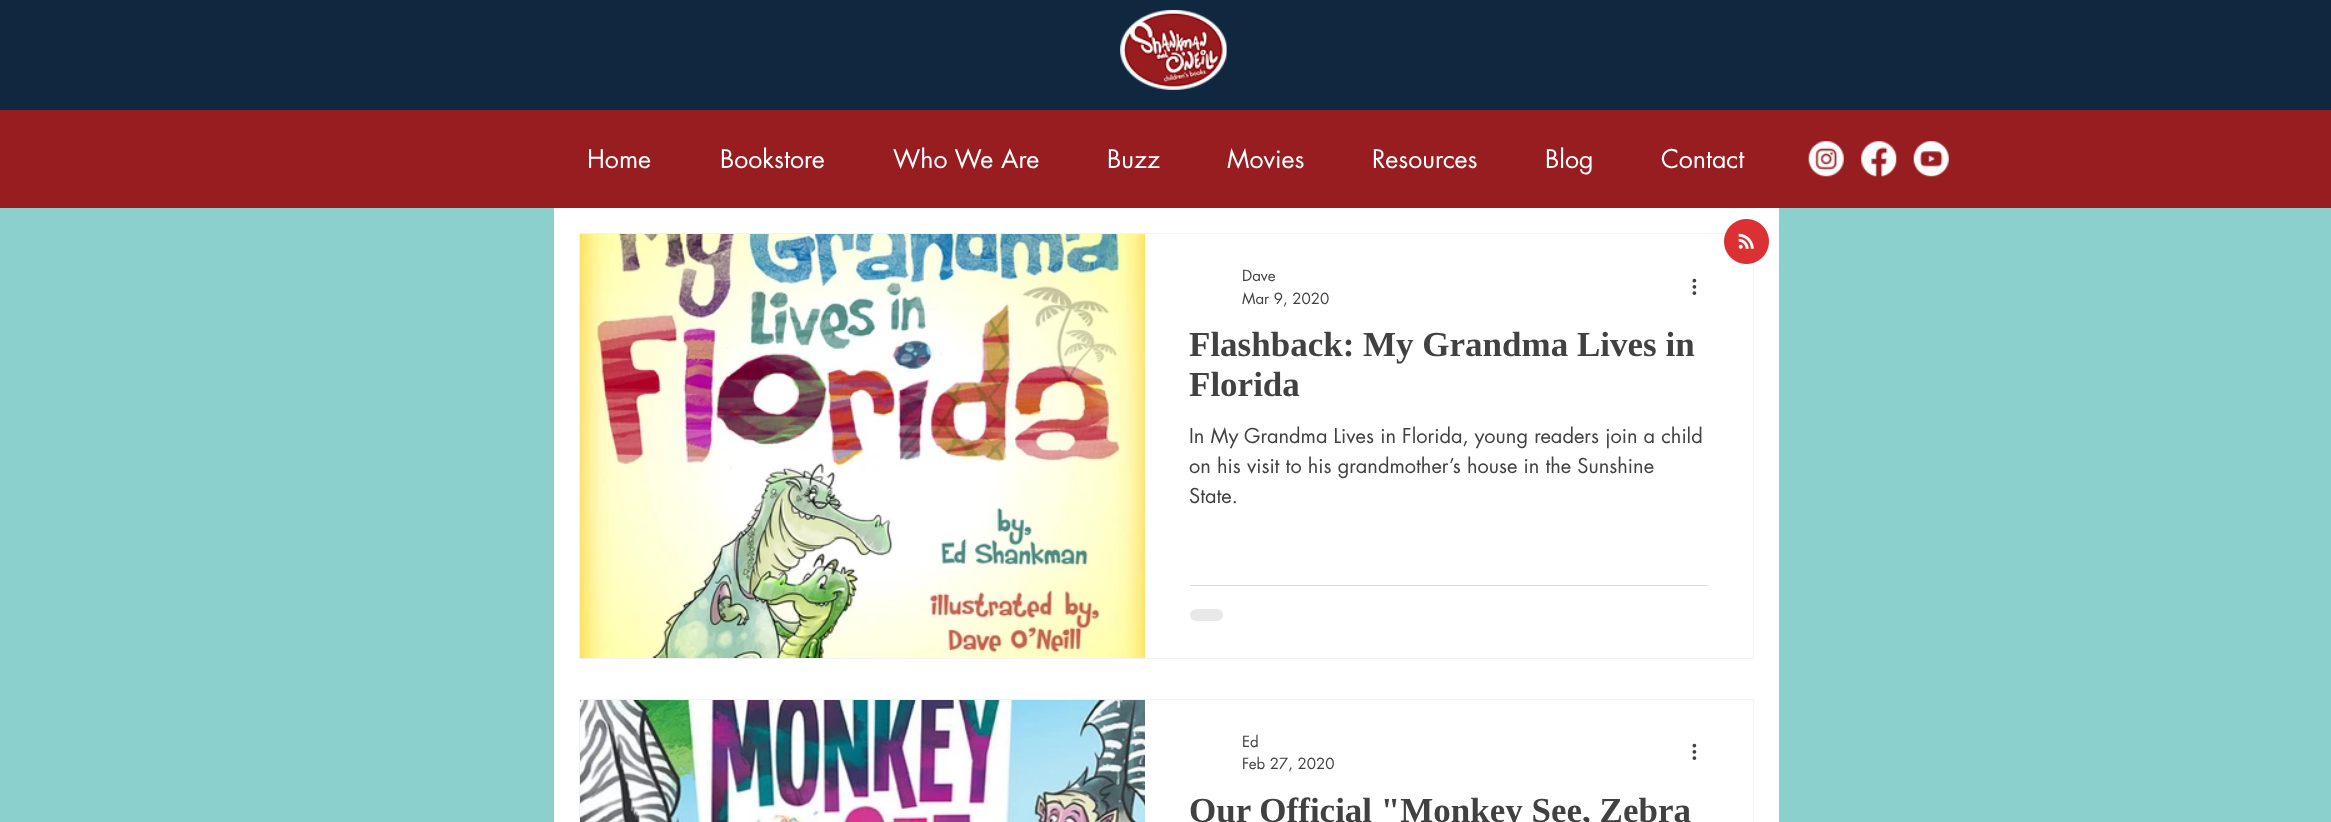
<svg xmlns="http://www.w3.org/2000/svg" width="2331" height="822">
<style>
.a{font:25px futura;fill:#fff}
.b{font:15px futura;fill:#414141}
.c{font:bold 35px Liberation Serif;fill:#414141}
.d{font:20px futura;fill:#414141}
</style>
<rect width="100%" height="100%" fill="#8bd0cd"/>
<path fill="#0f2840" d="M0 0h2331v110H0z"/>
<image href="1.png" x="1120" y="10" width="107" height="80"/>
<path fill="#981d20" d="M0 110h2331v98H0z"/>
<image href="2.png" x="1808" y="141" width="36" height="36"/>
<image href="3.png" x="1861" y="141" width="36" height="36"/>
<image href="4.png" x="1913" y="141" width="36" height="36"/>
<path fill="#fff" d="M554 208h1225v614H554z"/>
<path fill="none" stroke="#f2f2f2" d="M579.5 233.5h1174v425H579.5z"/>
<image href="5.png" x="1724" y="219" width="45" height="45"/>
<image href="6.png" x="580" y="234" width="565" height="424"/>
<image href="7.png" x="1692" y="278" width="5" height="17"/>
<path fill="#d9d9d9" d="M1190 585h518v1H1190z"/>
<rect fill="#e8e8e8" x="1190" y="609" width="33" height="12" rx="6"/>
<path fill="none" stroke="#f2f2f2" d="M579.5 699.5h1174v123H579.5z"/>
<image href="8.png" x="580" y="700" width="565" height="122"/>
<image href="7.png" x="1692" y="743" width="5" height="17"/>
<text class="a" x="587" y="168">Home</text>
<text class="a" x="720" y="168">Bookstore</text>
<text class="a" x="893" y="168">Who We Are</text>
<text class="a" x="1107" y="168">Buzz</text>
<text class="a" x="1227" y="168">Movies</text>
<text class="a" x="1372" y="168">Resources</text>
<text class="a" x="1545" y="168">Blog</text>
<text class="a" x="1661" y="168">Contact</text>
<text class="b" x="1242" y="281">Dave</text>
<text class="b" x="1242" y="304">Mar 9, 2020</text>
<text class="c" x="1189" y="356">Flashback: My Grandma Lives in</text>
<text class="c" x="1189" y="396">Florida</text>
<text class="d" x="1189" y="443">In My Grandma Lives in Florida, young readers join a child</text>
<text class="d" x="1189" y="473">on his visit to his grandmother’s house in the Sunshine</text>
<text class="d" x="1189" y="503">State.</text>
<text class="b" x="1242" y="747">Ed</text>
<text class="b" x="1242" y="769">Feb 27, 2020</text>
<text class="c" x="1189" y="822">Our Official "Monkey See, Zebra</text>
</svg>
